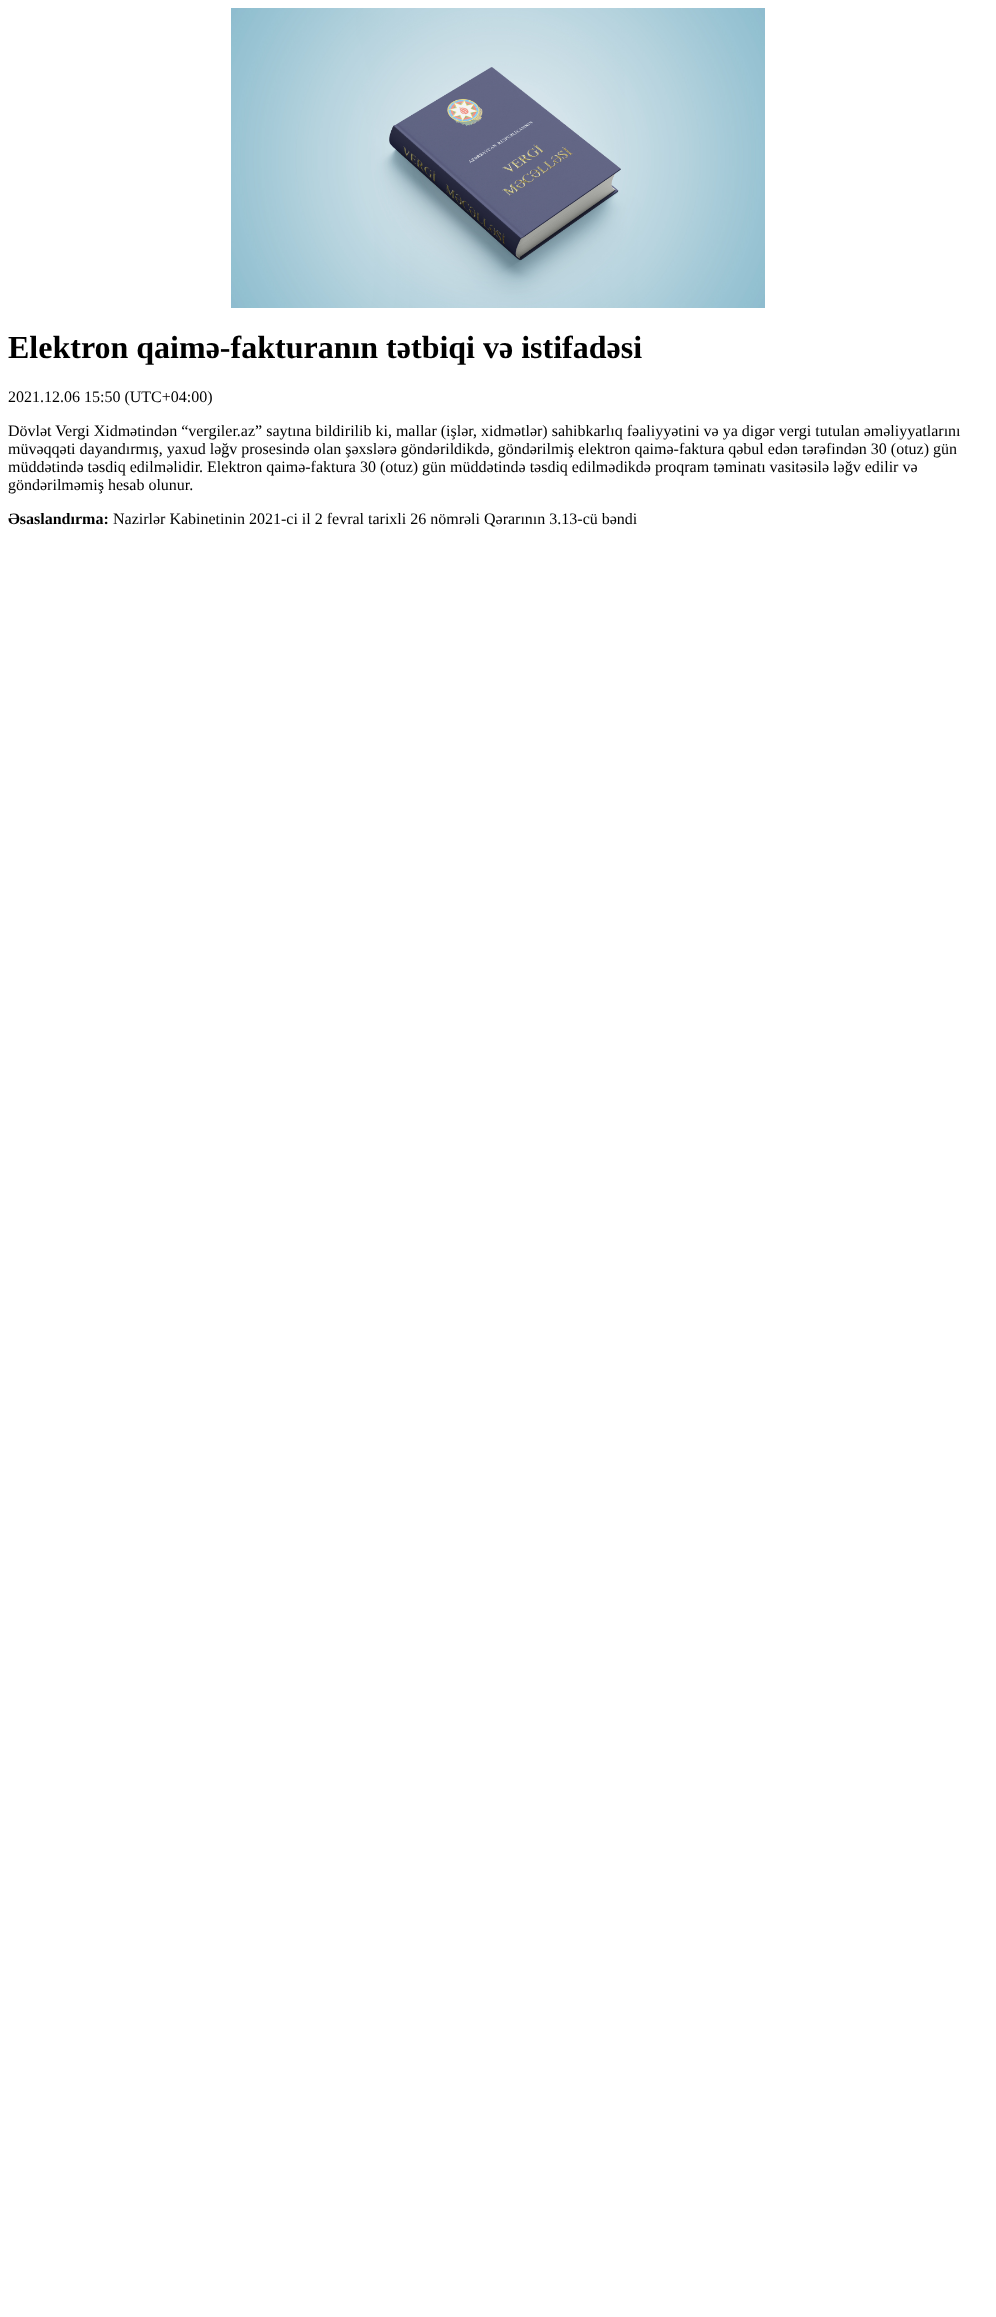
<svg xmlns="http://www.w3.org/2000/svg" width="996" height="2317">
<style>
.a{font:bold 32px Liberation Serif;fill:#000}
.b{font:16px Liberation Serif;fill:#000}
.c{font:bold 16px Liberation Serif;fill:#000}
</style>
<rect width="100%" height="100%" fill="#fff"/>
<image href="1.png" x="231" y="8" width="534" height="300"/>
<text class="a" x="8" y="358">Elektron qaimə-fakturanın tətbiqi və istifadəsi</text>
<text class="b" x="8" y="402">2021.12.06 15:50 (UTC+04:00)</text>
<text class="b" x="8" y="436">Dövlət Vergi Xidmətindən “vergiler.az” saytına bildirilib ki, mallar (işlər, xidmətlər) sahibkarlıq fəaliyyətini və ya digər vergi tutulan əməliyyatlarını</text>
<text class="b" x="8" y="454">müvəqqəti dayandırmış, yaxud ləğv prosesində olan şəxslərə göndərildikdə, göndərilmiş elektron qaimə-faktura qəbul edən tərəfindən 30 (otuz) gün</text>
<text class="b" x="8" y="472">müddətində təsdiq edilməlidir. Elektron qaimə-faktura 30 (otuz) gün müddətində təsdiq edilmədikdə proqram təminatı vasitəsilə ləğv edilir və</text>
<text class="b" x="8" y="490">göndərilməmiş hesab olunur.</text>
<text class="c" x="8" y="524">Əsaslandırma:</text>
<text class="b" x="113" y="524">Nazirlər Kabinetinin 2021-ci il 2 fevral tarixli 26 nömrəli Qərarının 3.13-cü bəndi</text>
</svg>
